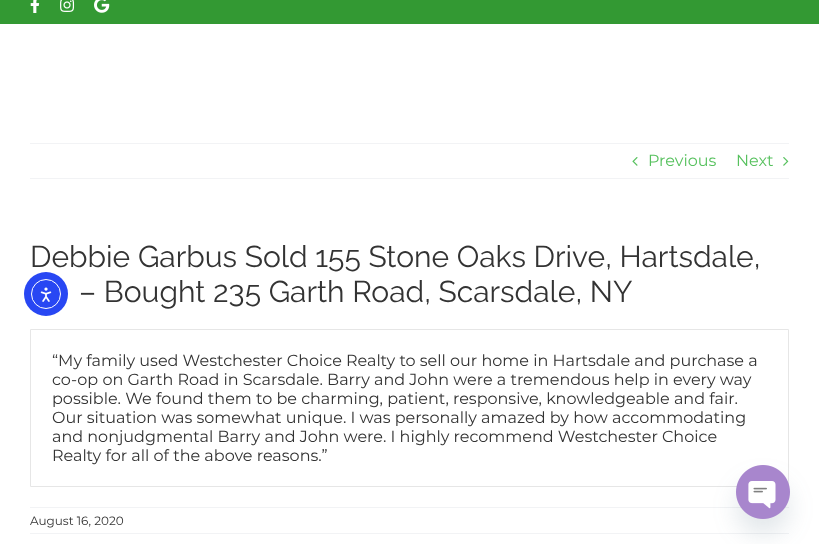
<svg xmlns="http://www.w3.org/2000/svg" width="819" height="544">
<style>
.a{font:16px Montserrat;fill:#57c15e}
.b{font:30px Raleway;fill:#333}
.c{font:16px Montserrat;fill:#333}
.d{font:12px Montserrat;fill:#333}
</style>
<rect width="100%" height="100%" fill="#fff"/>
<path fill="#393" d="M0 0h819v24H0z"/>
<image href="1.png" x="30" y="0" width="10" height="13"/>
<image href="2.png" x="60" y="0" width="15" height="12"/>
<image href="3.png" x="94" y="0" width="16" height="13"/>
<path fill="#f2f3f5" d="M30 143h759v1H30z"/>
<path fill="#f2f3f5" d="M30 178h759v1H30z"/>
<image href="4.png" x="632" y="157" width="6" height="9"/>
<image href="5.png" x="783" y="157" width="6" height="9"/>
<path fill="none" stroke="#e6e6e6" d="M30.5 329.5h758v157H30.5z"/>
<path fill="#f2f3f5" d="M30 507h759v1H30z"/>
<path fill="#f2f3f5" d="M30 533h759v1H30z"/>
<circle fill="#2847f3" cx="46" cy="294" r="22"/>
<circle fill="none" stroke="#fff" cx="46" cy="294" r="14.5"/>
<image href="6.png" x="40" y="287" width="12" height="15"/>
<rect fill="#49687e29" filter="blur(12px)" x="736" y="481" width="54" height="54" rx="27"/>
<image href="7.png" x="736" y="465" width="54" height="54"/>
<text class="a" x="648" y="166">Previous</text>
<text class="a" x="736" y="166">Next</text>
<text class="b" x="30" y="267">Debbie Garbus Sold 155 Stone Oaks Drive, Hartsdale,</text>
<text class="b" x="79" y="302">– Bought 235 Garth Road, Scarsdale, NY</text>
<text class="c" x="52" y="366">“My family used Westchester Choice Realty to sell our home in Hartsdale and purchase a</text>
<text class="c" x="52" y="385">co-op on Garth Road in Scarsdale. Barry and John were a tremendous help in every way</text>
<text class="c" x="52" y="404">possible. We found them to be charming, patient, responsive, knowledgeable and fair.</text>
<text class="c" x="52" y="423">Our situation was somewhat unique. I was personally amazed by how accommodating</text>
<text class="c" x="52" y="442">and nonjudgmental Barry and John were. I highly recommend Westchester Choice</text>
<text class="c" x="52" y="461">Realty for all of the above reasons.”</text>
<text class="d" x="30" y="525">August 16, 2020</text>
</svg>
